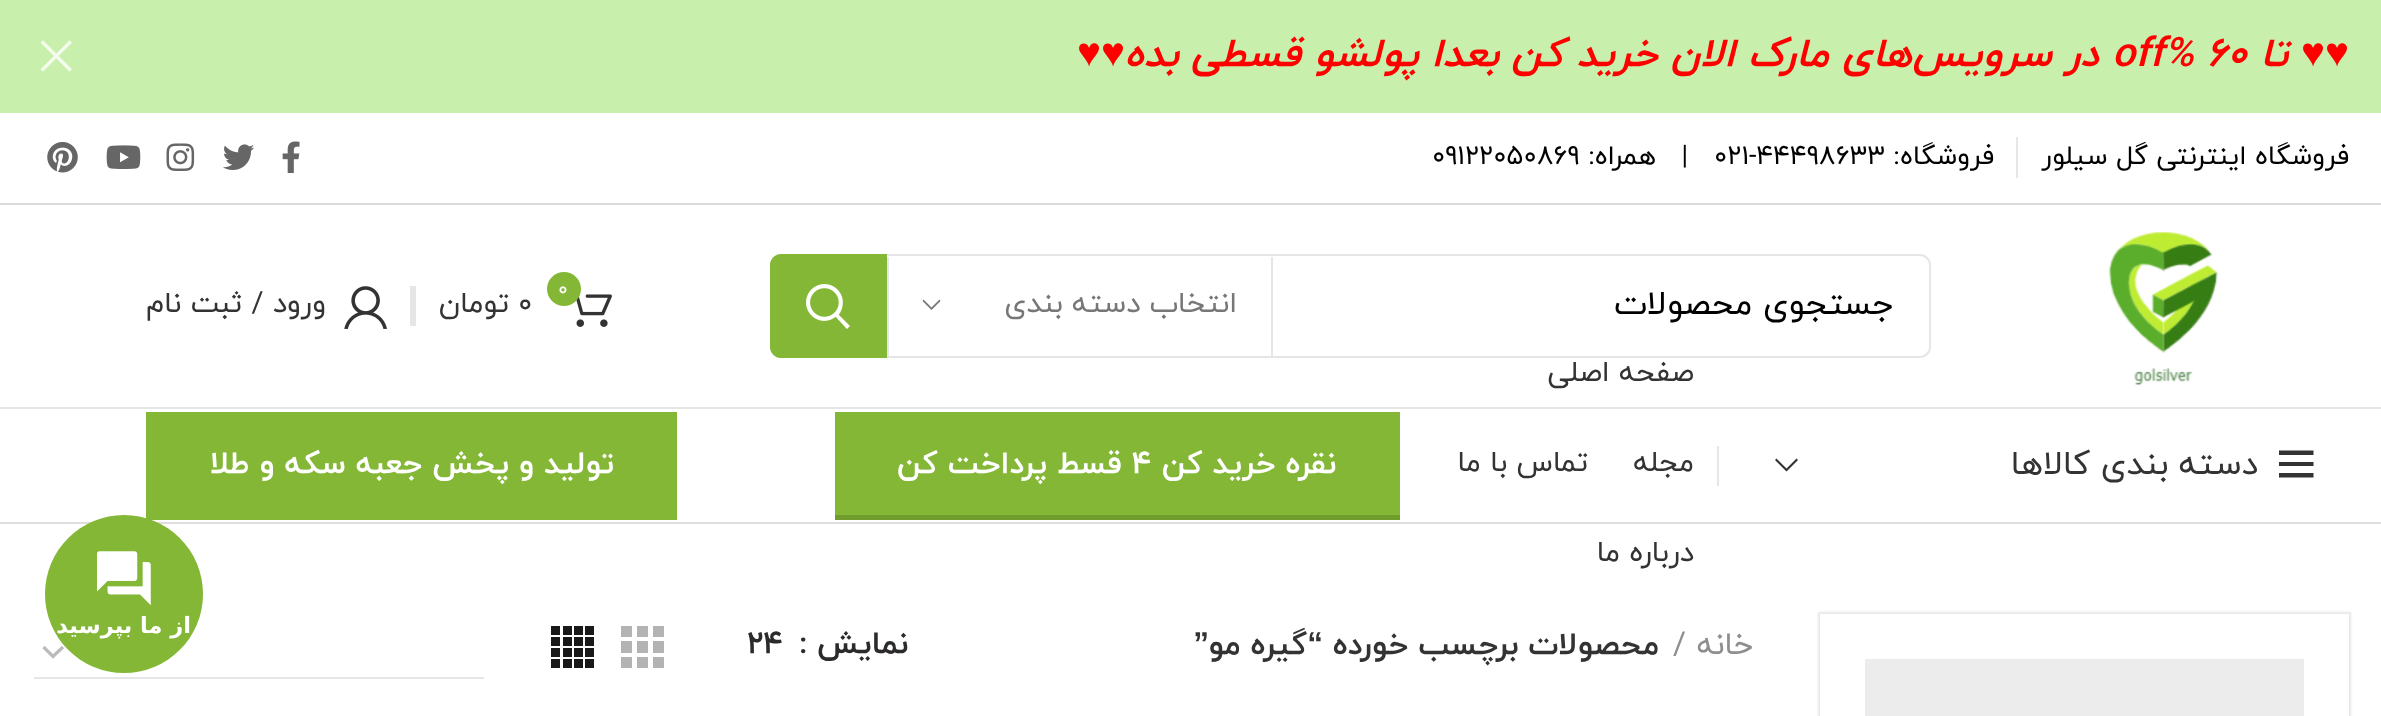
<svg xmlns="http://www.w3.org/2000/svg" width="2381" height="716">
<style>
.a{font:italic bold 40.5px Liberation Sans;direction:rtl;fill:#f00}
.b{font:italic bold 40.5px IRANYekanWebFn;direction:rtl;fill:#f00}
.c{font:italic bold 40.5px IRANYekanWebFn;fill:#f00}
.d{font:27px IRANYekanWebFn;direction:rtl;fill:#000}
.e{font:27px IRANYekanWebFn;fill:#000}
.f{font:33.75px IRANYekanWebFn;direction:rtl;fill:#000}
.g{font:29.25px IRANYekanWebFn;direction:rtl;fill:#777}
.h{font:20px IRANYekanWebFn;fill:#fff}
.i{font:29.25px IRANYekanWebFn;fill:#333}
.j{font:29.25px IRANYekanWebFn;direction:rtl;fill:#333}
.k{font:33.75px IRANYekanWebFn;direction:rtl;fill:#333}
.l{font:bold 31.5px IRANYekanWebFn;direction:rtl;fill:#fff}
.m{font:bold 31.5px IRANYekanWebFn;fill:#fff}
.n{font:31.5px IRANYekanWebFn;direction:rtl;fill:#8e8e8e}
.o{font:31.5px IRANYekanWebFn;fill:#8e8e8e}
.p{font:bold 31.5px IRANYekanWebFn;direction:rtl;fill:#333}
.q{font:bold 31.5px Liberation Sans;direction:rtl;fill:#333}
.r{font:bold 31.5px IRANYekanWebFn;direction:rtl;fill:#2d2a2a}
.s{font:bold 31.5px IRANYekanWebFn;fill:#2d2a2a}
.t{font:bold 22.5px DejaVu Sans;direction:rtl;fill:#fff}
</style>
<defs>
<clipPath id="clip1"><path d="M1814 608h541v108h-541zm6 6h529v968h-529z" clip-rule="evenodd"/></clipPath>
</defs>
<rect width="100%" height="100%" fill="#fff"/>
<path fill="#c8efac" d="M0 0h2381v113H0z"/>
<image href="1.png" x="40" y="40" width="32" height="32"/>
<path fill="#d9d9d9" d="M0 203h2381v2H0z"/>
<path fill="#e6e6e6" d="M2016 137h2v41H2016z"/>
<image href="2.png" x="282" y="141" width="18" height="32"/>
<image href="3.png" x="223" y="144" width="31" height="26"/>
<image href="4.png" x="166" y="143" width="29" height="28"/>
<image href="5.png" x="106" y="145" width="35" height="24"/>
<image href="6.png" x="47" y="142" width="31" height="31"/>
<path fill="#e6e6e6" d="M0 407h2381v2H0z"/>
<image href="7.png" x="2108" y="232" width="110" height="154"/>
<rect fill="none" stroke="#e6e6e6" stroke-width="2" x="771" y="255" width="1159" height="102" rx="10"/>
<path fill="#e6e6e6" d="M1271 257h2v99H1271z"/>
<path fill="#e6e6e6" d="M887 257h2v99H887z"/>
<path fill="#777" d="M939.5 299.5l1 1.5l-9 9l-9-9l1-1.5l8 8z"/>
<path fill="#83b735" d="M781 254h106v104h-106c-6 0-11-5-11-11v-82c0-6 5-11 11-11z"/>
<image href="8.png" x="806" y="284" width="44" height="45"/>
<image href="9.png" x="576" y="294" width="36" height="33"/>
<circle fill="#83b735" cx="564" cy="289" r="17"/>
<path fill="#e6e6e6" d="M410 286h6v40H410z"/>
<image href="10.png" x="344" y="286" width="43" height="43"/>
<path fill="#dedede" d="M0 522h2381v2H0z"/>
<path fill="#333" d="M2279 450.5h34.5v4.5h-34.5zm0 11.5h34.5v4h-34.5zm0 11h34.5v4.5h-34.5z"/>
<path fill="#333" d="M1796.5 458.5l1.5 1.5l-11.5 11.5l-11.5-11.5l1.5-1.5l10 10z"/>
<path fill="#e6e6e6" d="M1717 446h2v40H1717z"/>
<path fill="#83b735" d="M835 412h565v103H835z"/>
<path fill="#6f9c2d" d="M835 515h565v5H835z"/>
<path fill="#83b735" d="M146 412h531v108H146z"/>
<g clip-path="url(#clip1)">
<path fill="#e6e6e6" filter="blur(1px)" d="M1818 612h533v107H1818z"/>
</g>
<path fill="#ececec" d="M1865 659h439v57H1865z"/>
<path fill="#b3b3b3" d="M621 626h11v11H621z"/>
<path fill="#b3b3b3" d="M637 626h11v11H637z"/>
<path fill="#b3b3b3" d="M653 626h11v11H653z"/>
<path fill="#b3b3b3" d="M621 641h11v12H621z"/>
<path fill="#b3b3b3" d="M637 641h11v12H637z"/>
<path fill="#b3b3b3" d="M653 641h11v12H653z"/>
<path fill="#b3b3b3" d="M621 657h11v11H621z"/>
<path fill="#b3b3b3" d="M637 657h11v11H637z"/>
<path fill="#b3b3b3" d="M653 657h11v11H653z"/>
<image href="11.png" x="551" y="626" width="43" height="42"/>
<path fill="none" stroke="#bbb" stroke-width="3.2" d="M43.5 647l9.5 9.5l10-9.5"/>
<path fill="#e6e6e6" d="M34 677h450v2H34z"/>
<circle fill="#83b735" cx="124" cy="594" r="79"/>
<image href="12.png" x="97" y="551" width="54" height="54"/>
<text class="a" x="2349" y="66">♥♥</text>
<text class="b" x="2288" y="66">تا</text>
<text class="c" x="2112" y="66">off% 60</text>
<text class="b" x="2099" y="66">در سرویس‌های مارک الان خرید کن‌ بعدا پولشو قسطی بده</text>
<text class="a" x="1125" y="66">♥♥</text>
<text class="d" x="2349" y="164">فروشگاه اینترنتی گل سیلور</text>
<text class="d" x="1994" y="164">فروشگاه:</text>
<text class="e" x="1714" y="164">021-44498633</text>
<text class="d" xml:space="preserve" x="1688" y="164">|   همراه:</text>
<text class="e" x="1432" y="164">09122050869</text>
<text class="f" x="1893" y="314">جستجوی محصولات</text>
<text class="g" x="1237" y="312">انتخاب دسته بندی</text>
<text class="h" x="558" y="295">0</text>
<text class="i" x="518" y="312">0</text>
<text class="j" x="509" y="312">تومان</text>
<text class="j" x="326" y="312">ورود / ثبت نام</text>
<text class="k" x="2258" y="474">دسته بندی کالاها</text>
<text class="j" x="1694" y="381">صفحه اصلی</text>
<text class="j" x="1694" y="471">مجله</text>
<text class="j" x="1588" y="471">تماس با ما</text>
<text class="j" x="1694" y="561">درباره ما</text>
<text class="l" x="1336" y="473">نقره خرید کن</text>
<text class="m" x="1132" y="473">4</text>
<text class="l" x="1122" y="473">قسط پرداخت کن</text>
<text class="l" x="614" y="473">تولید و پخش جعبه سکه و طلا</text>
<text class="n" x="1753" y="654">خانه</text>
<text class="o" x="1673" y="654">/</text>
<text class="p" x="1659" y="654">محصولات برچسب خورده</text>
<text class="q" x="1323" y="654">“</text>
<text class="p" x="1307" y="654">گیره مو</text>
<text class="q" x="1209" y="654">”</text>
<text class="r" x="908" y="653">نمایش</text>
<text class="s" x="799" y="653">:</text>
<text class="s" x="747" y="653">24</text>
<text class="t" x="191" y="633">از ما بپرسید</text>
</svg>
